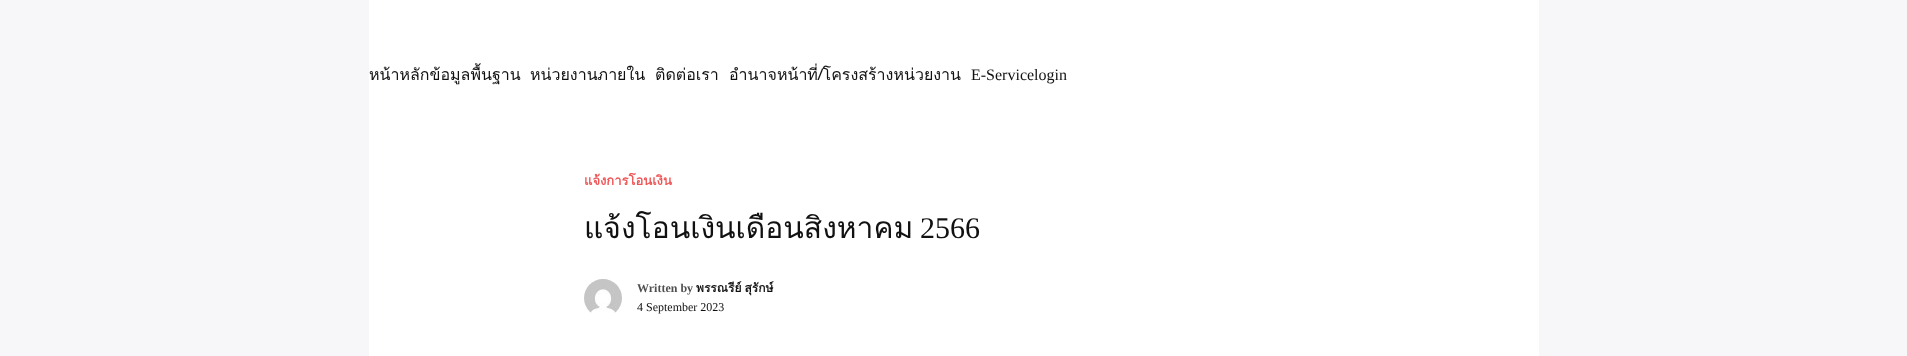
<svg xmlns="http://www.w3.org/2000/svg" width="1907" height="356">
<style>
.a{font:16px Loma;fill:#111}
.b{font:16px Liberation Serif;fill:#111}
.c{font:bold 13px Loma;fill:#ef5455}
.d{font:30px Loma;fill:#111}
.e{font:30px Liberation Serif;fill:#111}
.f{font:bold 12px Liberation Serif;fill:#505050}
.g{font:bold 12px Loma;fill:#111}
.h{font:12px Liberation Serif;fill:#111}
</style>
<rect width="100%" height="100%" fill="#f7f7f9"/>
<path fill="#fff" d="M369 0h1170v356H369z"/>
<image href="1.png" x="584" y="279" width="38" height="34"/>
<text class="a" x="369" y="80">หน้าหลักข้อมูลพื้นฐาน</text>
<text class="a" x="530" y="80">หน่วยงานภายใน</text>
<text class="a" x="655" y="80">ติดต่อเรา</text>
<text class="a" x="729" y="80">อำนาจหน้าที่/โครงสร้างหน่วยงาน</text>
<text class="b" x="971" y="80">E-Servicelogin</text>
<text class="c" x="584" y="185">แจ้งการโอนเงิน</text>
<text class="d" x="584" y="238">แจ้งโอนเงินเดือนสิงหาคม</text>
<text class="e" x="920" y="238">2566</text>
<text class="f" x="637" y="292">Written by</text>
<text class="g" x="696" y="292" word-spacing="-1">พรรณรีย์ สุรักษ์</text>
<text class="h" x="637" y="311">4 September 2023</text>
</svg>
